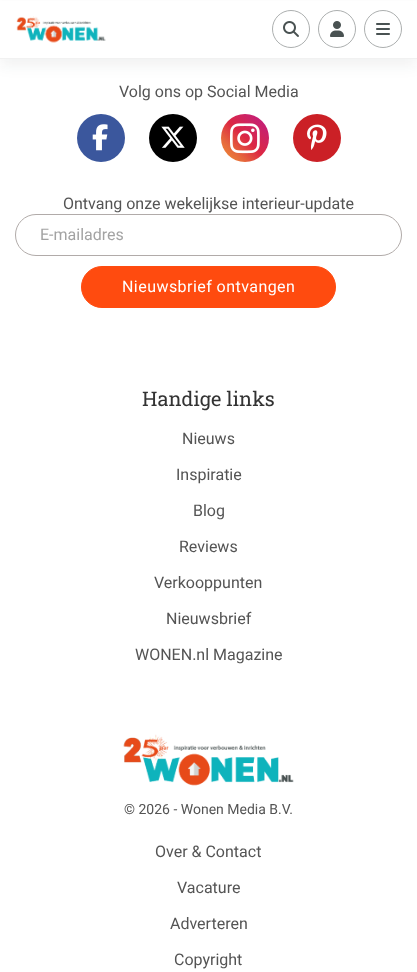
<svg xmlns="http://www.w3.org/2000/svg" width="417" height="972">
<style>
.a{font:16px Roboto;fill:#545454}
.b{font:16px Roboto;fill:#a3a3a3}
.c{font:16px Roboto;letter-spacing:0.45px;fill:#fff}
.d{font:20px Roboto Slab;fill:#333}
.e{font:14px Roboto;fill:#545454}
</style>
<defs>
<linearGradient id="g1" gradientUnits="userSpaceOnUse" x1="221" y1="162" x2="269" y2="114"><stop offset="0" stop-color="#f09433"/><stop offset="0.25" stop-color="#e6683c"/><stop offset="0.5" stop-color="#dc2743"/><stop offset="0.75" stop-color="#cc2366"/><stop offset="1" stop-color="#bc1888"/></linearGradient>
</defs>
<rect width="100%" height="100%" fill="#fff"/>
<path fill="#171c1c0f" filter="blur(7px)" d="M0 7h417v59H0z"/>
<path fill="#fff" d="M0 1h417v57H0z"/>
<path fill="#f1f1f1" d="M0 58h417v1H0z"/>
<image href="1.png" x="16" y="16" width="90" height="27"/>
<circle fill="none" stroke="#acafaf" cx="291" cy="29" r="18.5"/>
<image href="2.png" x="283" y="21" width="16" height="16"/>
<circle fill="none" stroke="#acafaf" cx="337" cy="29" r="18.5"/>
<image href="3.png" x="330" y="21" width="14" height="16"/>
<circle fill="none" stroke="#acafaf" cx="383" cy="29" r="18.5"/>
<image href="4.png" x="376" y="23" width="14" height="12"/>
<circle fill="#3b579d" cx="101" cy="138" r="24"/>
<image href="5.png" x="92" y="124" width="16" height="27"/>
<circle fill="#000" cx="173" cy="138" r="24"/>
<image href="6.png" x="161" y="126" width="24" height="22"/>
<circle fill="url(#g1)" cx="245" cy="138" r="24"/>
<image href="7.png" x="230" y="123" width="30" height="31"/>
<circle fill="#cb2026" cx="317" cy="138" r="24"/>
<image href="8.png" x="307" y="124" width="20" height="26"/>
<rect fill="none" stroke="#b1aba9" x="15.5" y="214.5" width="386" height="41" rx="20.5"/>
<rect fill="#ff4b0f" stroke="#ff4b0f" x="81.5" y="266.5" width="254" height="41" rx="20.5"/>
<image href="9.png" x="123" y="734" width="171" height="52"/>
<text class="a" x="119" y="97">Volg ons op Social Media</text>
<text class="a" x="63" y="209">Ontvang onze wekelijkse interieur-update</text>
<text class="b" x="40" y="240">E-mailadres</text>
<text class="c" x="122" y="292">Nieuwsbrief ontvangen</text>
<text class="d" x="142" y="406">Handige links</text>
<text class="a" x="182" y="444">Nieuws</text>
<text class="a" x="176" y="480">Inspiratie</text>
<text class="a" x="193" y="516">Blog</text>
<text class="a" x="179" y="552">Reviews</text>
<text class="a" x="154" y="588">Verkooppunten</text>
<text class="a" x="166" y="624">Nieuwsbrief</text>
<text class="a" x="135" y="660">WONEN.nl Magazine</text>
<text class="e" x="124" y="814">© 2026 - Wonen Media B.V.</text>
<text class="a" x="155" y="857">Over &amp; Contact</text>
<text class="a" x="177" y="893">Vacature</text>
<text class="a" x="170" y="929">Adverteren</text>
<text class="a" x="174" y="965">Copyright</text>
</svg>
